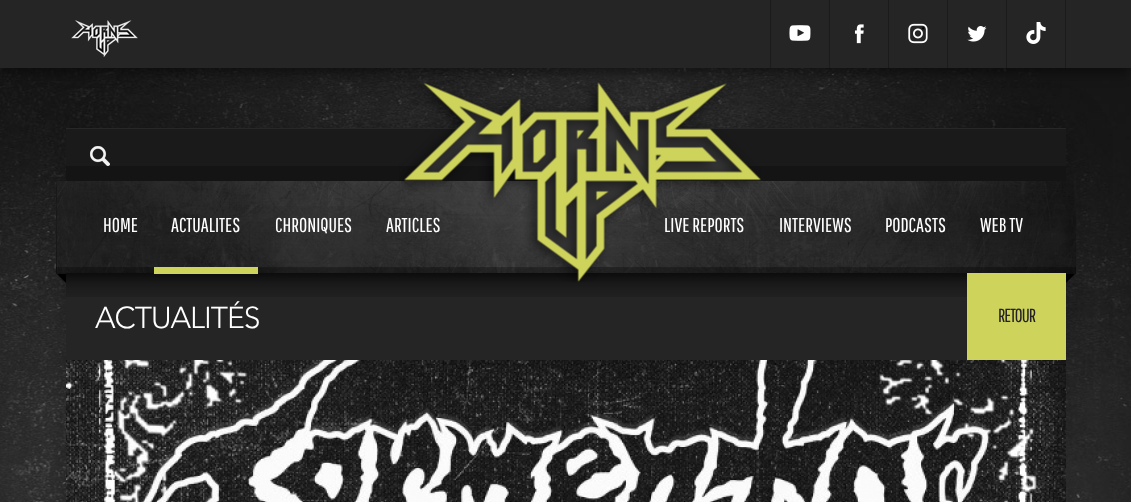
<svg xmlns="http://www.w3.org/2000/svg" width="1131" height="502">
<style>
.a{font:20px Pathway Gothic One;fill:#fff}
.b{font:300 30px Avenir;letter-spacing:-1px;fill:#fff}
.c{font:19px Pathway Gothic One;letter-spacing:-1px;fill:#242225}
</style>
<rect width="100%" height="100%" fill="#fff"/>
<image href="1.png" x="0" y="68" width="1131" height="434"/>
<path fill="#00000080" filter="blur(7px)" d="M0 4h1131v68H0z"/>
<path fill="#252525" d="M0 0h1131v68H0z"/>
<image href="2.png" x="71" y="20" width="67" height="37"/>
<path fill="#1b1b1b" d="M1065 0h1v68H1065z"/>
<path fill="#1b1b1b" d="M770 0h1v68H770z"/>
<image href="3.png" x="789" y="25" width="22" height="16"/>
<path fill="#1b1b1b" d="M829 0h1v68H829z"/>
<image href="4.png" x="854" y="24" width="10" height="20"/>
<path fill="#1b1b1b" d="M888 0h1v68H888z"/>
<image href="5.png" x="908" y="23" width="20" height="21"/>
<path fill="#1b1b1b" d="M947 0h1v68H947z"/>
<image href="6.png" x="967" y="26" width="20" height="16"/>
<path fill="#1b1b1b" d="M1006 0h1v68H1006z"/>
<image href="7.png" x="1026" y="22" width="20" height="22"/>
<path fill="#0000004d" filter="blur(21.5px)" d="M66 128h1000v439H66z"/>
<path fill="#1a1a1a" d="M66 129h1000v37H66z"/>
<path fill="#141414" d="M66 166h1000v15H66z"/>
<path fill="#272727" d="M66 128h1000v1H66z"/>
<image href="8.png" x="90" y="146" width="20" height="20"/>
<image href="9.png" x="56" y="181" width="1020" height="102"/>
<image href="11.png" x="66" y="273" width="901" height="24"/>
<image href="10.png" x="399" y="82" width="362" height="200"/>
<path fill="#ced35c" d="M154 267h104v7H154z"/>
<path fill="#252525" d="M66 297h901v63H66z"/>
<path fill="#ced35c" d="M967 273h99v87H967z"/>
<image href="12.png" x="66" y="360" width="1000" height="142"/>
<text class="a" x="103" y="232">HOME</text>
<text class="a" x="171" y="232">ACTUALITES</text>
<text class="a" x="275" y="232">CHRONIQUES</text>
<text class="a" x="386" y="232">ARTICLES</text>
<text class="a" x="664" y="232">LIVE REPORTS</text>
<text class="a" x="779" y="232">INTERVIEWS</text>
<text class="a" x="885" y="232">PODCASTS</text>
<text class="a" x="980" y="232">WEB TV</text>
<text class="b" x="95" y="328">ACTUALITÉS</text>
<text class="c" x="998" y="322">RETOUR</text>
</svg>
